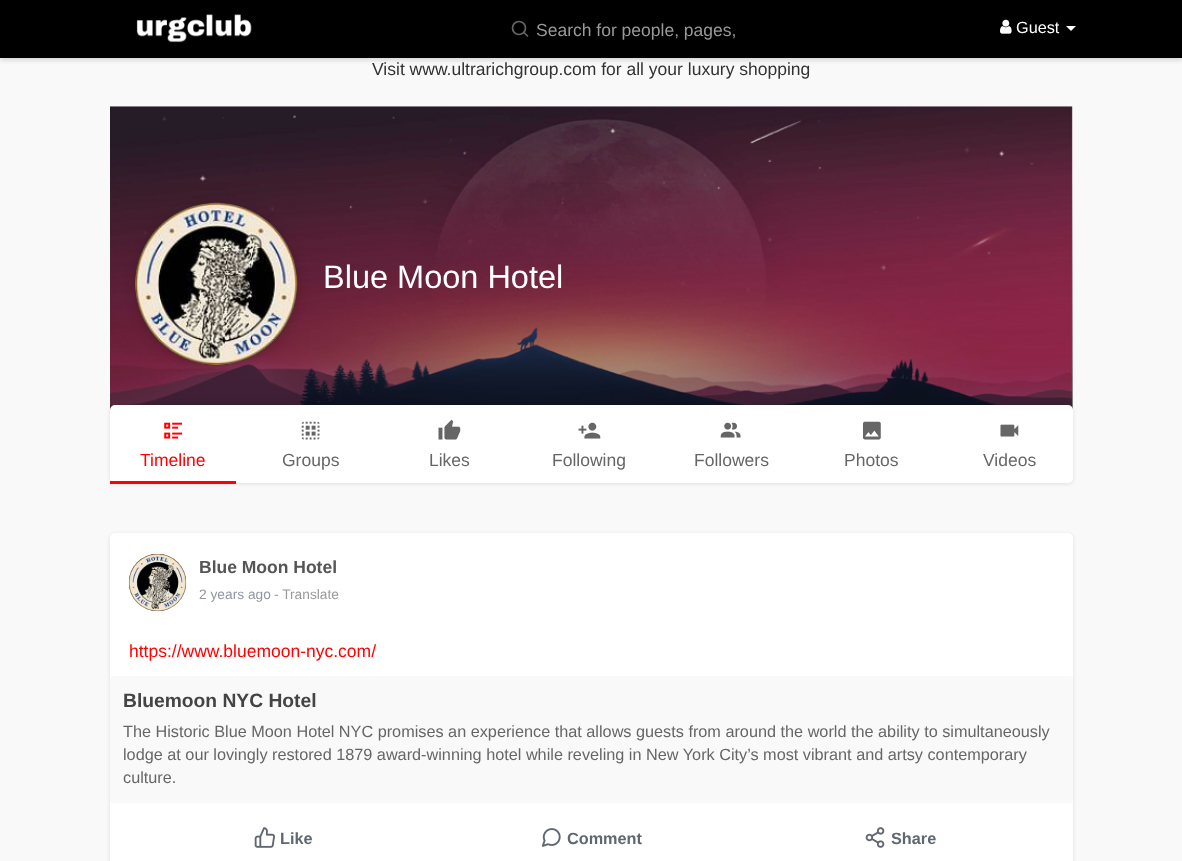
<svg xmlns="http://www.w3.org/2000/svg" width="1182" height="861">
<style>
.a{font:17.5px Liberation Sans;fill:#999}
.b{font:16.25px Liberation Sans;fill:#fff}
.c{font:17.5px Liberation Sans;fill:#333}
.d{font:32.5px Liberation Sans;fill:#fff}
.e{font:17.5px Liberation Sans;fill:#ff0003}
.f{font:17.5px Liberation Sans;fill:#666}
.g{font:bold 17.5px Liberation Sans;fill:#555}
.h{font:13.75px Liberation Sans;fill:#9197a3}
.i{font:13.75px Liberation Sans;fill:#999}
.j{font:bold 19.25px Liberation Sans;fill:#444}
.k{font:16.25px Liberation Sans;fill:#666}
.l{font:bold 16.25px Liberation Sans;fill:#616770}
</style>
<defs>
<linearGradient id="g1" gradientUnits="userSpaceOnUse" x1="591" y1="171" x2="591" y2="421"><stop offset="0" stop-color="#000" stop-opacity="0"/><stop offset="1" stop-color="#000" stop-opacity="0.45"/></linearGradient>
</defs>
<rect width="100%" height="100%" fill="#f9f9f9"/>
<path fill="#00000026" filter="blur(2.5px)" d="M0 3h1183v57H0z"/>
<path fill="#000" d="M0 0h1182v58H0z"/>
<image href="1.png" x="136" y="14" width="116" height="29"/>
<circle fill="none" stroke="#666" stroke-width="1.7" cx="519" cy="28" r="6.5"/>
<path fill="none" stroke="#666" stroke-width="1.7" stroke-linecap="round" stroke-linejoin="round" d="M527.5 36l-3.5-3.5"/>
<image href="2.png" x="1000" y="19" width="12" height="15"/>
<path fill="#fff" d="M1066 26h10l-5 5z"/>
<path fill="#fff" d="M110 106h963v304H110z"/>
<image href="3.png" x="110" y="106" width="963" height="304"/>
<path fill="url(#g1)" d="M110 183h963v227H110z"/>
<rect fill="#00000026" filter="blur(6px)" x="135" y="205" width="163" height="163" rx="81.5"/>
<image href="4.png" x="135" y="202" width="163" height="163"/>
<rect fill="#0000001a" filter="blur(2px)" x="110" y="406" width="963" height="78" rx="5"/>
<rect fill="#fff" x="110" y="405" width="963" height="78" rx="5"/>
<path fill="#ff0003" d="M110 481h126v3H110z"/>
<image href="5.png" x="164" y="422" width="19" height="17"/>
<image href="6.png" x="301" y="421" width="19" height="19"/>
<image href="7.png" x="438" y="419" width="23" height="21"/>
<image href="8.png" x="578" y="422" width="23" height="17"/>
<image href="9.png" x="720" y="422" width="21" height="16"/>
<image href="10.png" x="862" y="421" width="19" height="19"/>
<image href="11.png" x="1000" y="424" width="19" height="13"/>
<rect fill="#0000001a" filter="blur(2px)" x="110" y="534" width="963" height="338" rx="5"/>
<rect fill="#fff" x="110" y="533" width="963" height="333" rx="5"/>
<image href="12.png" x="128" y="553" width="59" height="59"/>
<rect fill="#f9f9f9" x="110" y="676" width="963" height="127" rx="4"/>
<image href="13.png" x="254" y="827" width="21" height="21"/>
<image href="14.png" x="541" y="828" width="20" height="19"/>
<image href="15.png" x="865" y="827" width="20" height="21"/>
<text class="a" x="536" y="36">Search for people, pages,</text>
<text class="b" x="1016" y="33">Guest</text>
<text class="c" x="372" y="75">Visit www.ultrarichgroup.com for all your luxury shopping</text>
<text class="d" x="323" y="288">Blue Moon Hotel</text>
<text class="e" x="140" y="466">Timeline</text>
<text class="f" x="282" y="466">Groups</text>
<text class="f" x="429" y="466">Likes</text>
<text class="f" x="552" y="466">Following</text>
<text class="f" x="694" y="466">Followers</text>
<text class="f" x="844" y="466">Photos</text>
<text class="f" x="983" y="466">Videos</text>
<text class="g" x="199" y="573">Blue Moon Hotel</text>
<text class="h" x="199" y="599">2 years ago</text>
<text class="i" x="274" y="599">- Translate</text>
<text class="e" x="129" y="657">https://www.bluemoon-nyc.com/</text>
<text class="j" x="123" y="707">Bluemoon NYC Hotel</text>
<text class="k" x="123" y="737">The Historic Blue Moon Hotel NYC promises an experience that allows guests from around the world the ability to simultaneously</text>
<text class="k" x="123" y="760">lodge at our lovingly restored 1879 award-winning hotel while reveling in New York City’s most vibrant and artsy contemporary</text>
<text class="k" x="123" y="783">culture.</text>
<text class="l" x="280" y="844">Like</text>
<text class="l" x="567" y="844">Comment</text>
<text class="l" x="891" y="844">Share</text>
</svg>
